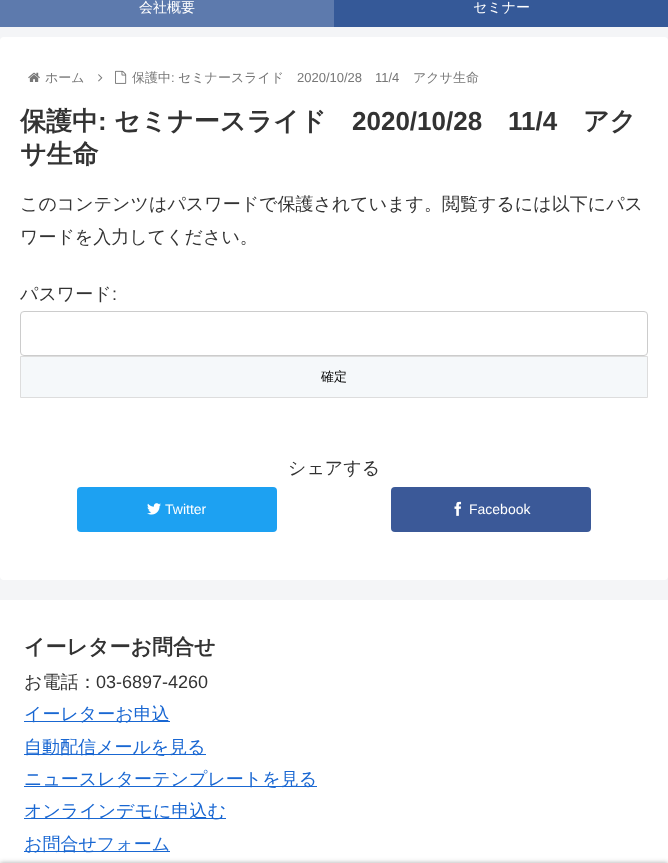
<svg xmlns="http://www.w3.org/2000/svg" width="668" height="863">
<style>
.a{font:500 14px WenQuanYi Zen Hei;fill:#fff}
.b{font:500 13px WenQuanYi Zen Hei;fill:#777}
.c{font:13px Liberation Sans;fill:#777}
.d{font:bold 26px WenQuanYi Zen Hei;fill:#333}
.e{font:bold 26px Liberation Sans;fill:#333}
.f{font:500 18px WenQuanYi Zen Hei;fill:#333}
.g{font:18px Liberation Sans;fill:#333}
.h{font:500 13px WenQuanYi Zen Hei;fill:#000}
.i{font:14px Liberation Sans;fill:#fff}
.j{font:bold 21px WenQuanYi Zen Hei;fill:#333}
.k{font:500 18px WenQuanYi Zen Hei;fill:#1967d2}
</style>
<rect width="100%" height="100%" fill="#f4f5f7"/>
<path fill="#355998" d="M334 0h334v27H334z"/>
<path fill="#5d7aad" d="M0 0h334v27H0z"/>
<rect fill="#fff" y="37" width="668" height="543" rx="4"/>
<image href="1.png" x="28" y="72" width="12" height="10"/>
<image href="2.png" x="98" y="74" width="5" height="8"/>
<image href="3.png" x="115" y="70" width="12" height="14"/>
<rect fill="none" stroke="#ccc" x="20.5" y="311.5" width="627" height="44" rx="3.5"/>
<path fill="#f5f8fa" stroke="#ddd" d="M20.5 356.5h627v41H20.5z"/>
<rect fill="#1da1f2" x="77" y="487" width="200" height="45" rx="4"/>
<image href="4.png" x="147" y="503" width="14" height="12"/>
<rect fill="#3b5998" x="391" y="487" width="200" height="45" rx="4"/>
<image href="5.png" x="454" y="501" width="8" height="15"/>
<path fill="#fff" d="M0 600h668v263H0z"/>
<path fill="#1967d2" d="M24 721h146v1H24z"/>
<path fill="#1967d2" d="M24 754h182v1H24z"/>
<path fill="#1967d2" d="M24 786h293v1H24z"/>
<path fill="#1967d2" d="M24 818h202v1H24z"/>
<path fill="#1967d2" d="M24 851h146v1H24z"/>
<path fill="#a9a9a9" filter="blur(2.5px)" d="M0 863h668v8H0z"/>
<text class="a" x="139" y="12">会社概要</text>
<text class="a" x="473" y="12">セミナー</text>
<text class="b" x="45" y="82">ホーム</text>
<text class="b" x="132" y="82">保護中</text>
<text class="c" x="171" y="82">:</text>
<text class="b" x="178" y="82">セミナースライド</text>
<text class="c" x="297" y="82">2020/10/28</text>
<text class="c" x="375" y="82">11/4</text>
<text class="b" x="413" y="82">アクサ生命</text>
<text class="d" x="20" y="130">保護中</text>
<text class="e" x="98" y="130">:</text>
<text class="d" x="114" y="130">セミナースライド</text>
<text class="e" x="352" y="130">2020/10/28</text>
<text class="e" x="508" y="130">11/4</text>
<text class="d" x="583" y="130">アク</text>
<text class="d" x="20" y="163">サ生命</text>
<text class="f" x="20" y="210">このコンテンツはパスワードで保護されています。閲覧するには以下にパス</text>
<text class="f" x="20" y="243">ワードを入力してください。</text>
<text class="f" x="20" y="300">パスワード</text>
<text class="g" x="112" y="300">:</text>
<text class="h" x="321" y="381">確定</text>
<text class="f" x="288" y="474">シェアする</text>
<text class="i" x="165" y="514">Twitter</text>
<text class="i" x="469" y="514">Facebook</text>
<text class="j" x="24" y="654">イーレターお問合せ</text>
<text class="f" x="24" y="688">お電話：</text>
<text class="g" x="96" y="688">03-6897-4260</text>
<text class="k" x="24" y="720">イーレターお申込</text>
<text class="k" x="24" y="753">自動配信メールを見る</text>
<text class="k" x="24" y="785">ニュースレターテンプレートを見る</text>
<text class="k" x="24" y="817">オンラインデモに申込む</text>
<text class="k" x="24" y="850">お問合せフォーム</text>
</svg>
